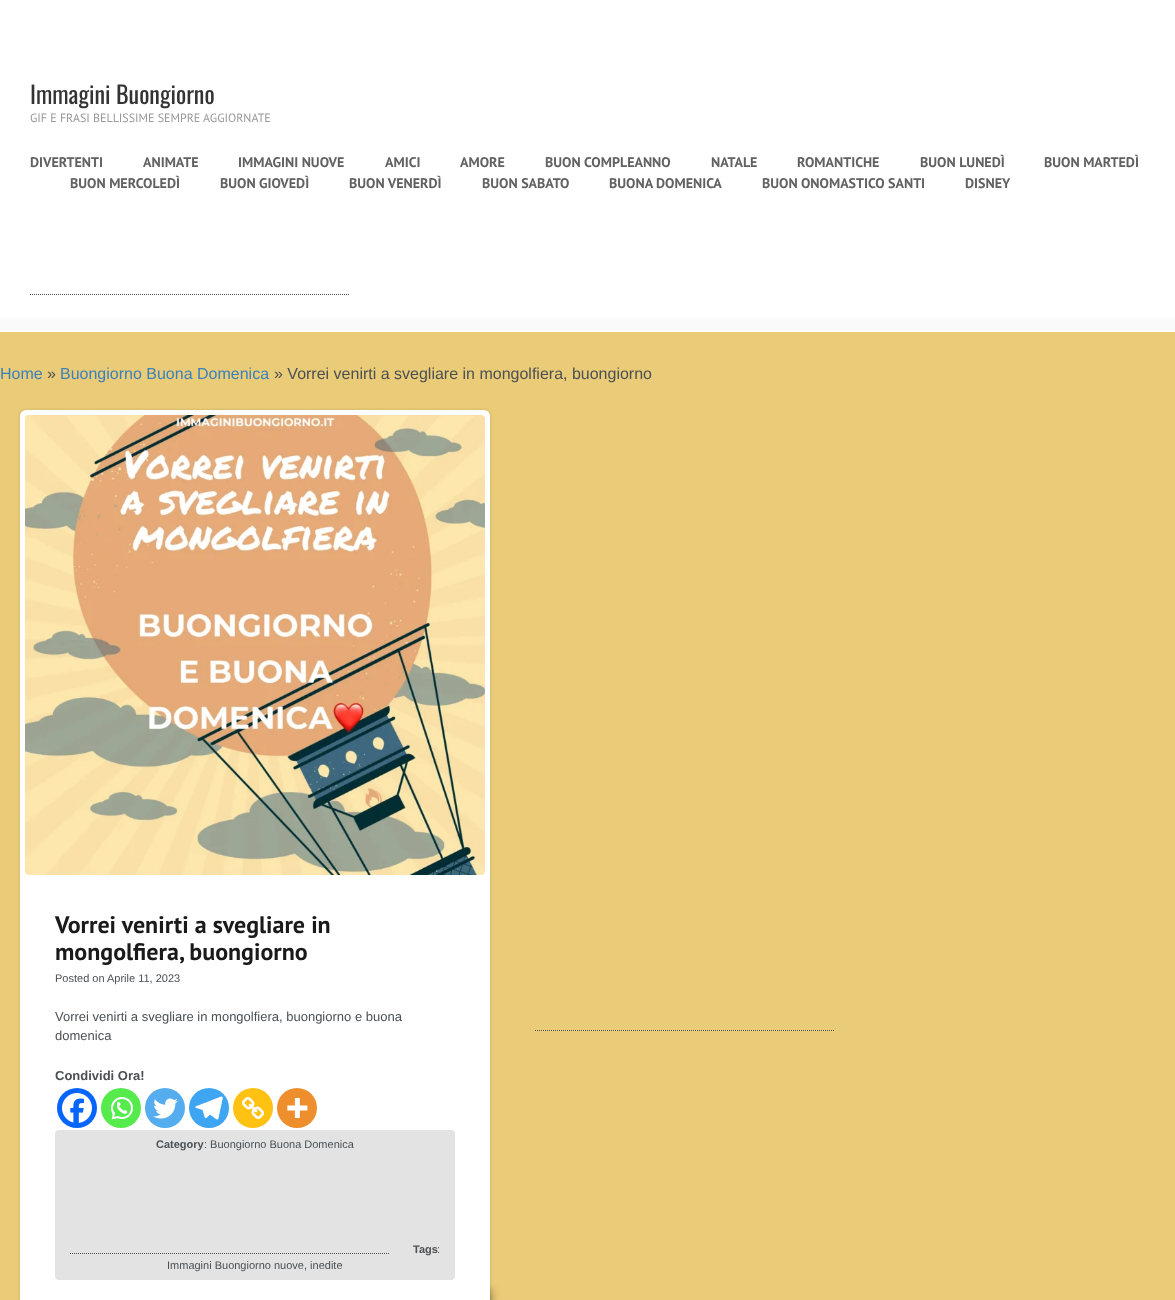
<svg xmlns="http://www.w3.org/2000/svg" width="1175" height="1300">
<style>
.a{font:24px Oswald;fill:#333}
.b{font:12px PT Sans;fill:#999}
.c{font:bold 14px PT Sans;fill:#616161}
.d{font:16px Liberation Sans;fill:#3a80bc}
.e{font:16px Liberation Sans;fill:#4b5054}
.f{font:bold 24px PT Sans;fill:#1a1a1a}
.g{font:11px Liberation Sans;fill:#4b5054}
.h{font:13px Liberation Sans;fill:#4b5054}
.i{font:bold 13px Liberation Sans;fill:#4b5054}
.j{font:bold 11px Liberation Sans;fill:#4b5054}
</style>
<rect width="100%" height="100%" fill="#eacb77"/>
<path fill="#fff" d="M0 0h1175v332H0z"/>
<path fill="#fafafa" d="M0 318h1175v13H0z"/>
<path fill="none" stroke="#4b5054" stroke-dasharray="1 1" d="M30 294.5h320"/>
<rect fill="#00000026" filter="blur(1.5px)" x="20" y="410" width="470" height="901" rx="6"/>
<path fill="#00000080" filter="blur(5px)" d="M250 1290h240v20H250z"/>
<rect fill="#fff" x="20" y="410" width="470" height="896" rx="6"/>
<image href="1.png" x="25" y="415" width="460" height="460"/>
<circle fill="#0765fe" cx="77" cy="1108" r="20"/>
<image href="2.png" x="62" y="1093" width="30" height="30"/>
<circle fill="#55eb4c" cx="121" cy="1108" r="20"/>
<image href="3.png" x="111" y="1097" width="22" height="23"/>
<circle fill="#55acee" cx="165" cy="1108" r="20"/>
<image href="4.png" x="153" y="1098" width="25" height="21"/>
<circle fill="#3da5f1" cx="209" cy="1108" r="20"/>
<image href="5.png" x="195" y="1096" width="28" height="24"/>
<circle fill="#ffc112" cx="253" cy="1108" r="20"/>
<image href="6.png" x="242" y="1097" width="22" height="22"/>
<circle fill="#ee8e2d" cx="297" cy="1108" r="20"/>
<image href="7.png" x="287" y="1098" width="21" height="20"/>
<rect fill="#e3e3e3" x="55" y="1130" width="400" height="150" rx="4"/>
<path fill="none" stroke="#4b5054" stroke-dasharray="1 1" d="M70 1253.5h320"/>
<path fill="none" stroke="#4b5054" stroke-dasharray="1 1" d="M535 1030.5h300"/>
<text class="a" x="30" y="104">Immagini Buongiorno</text>
<text class="b" x="30" y="122">GIF E FRASI BELLISSIME SEMPRE AGGIORNATE</text>
<text class="c" x="30" y="167">DIVERTENTI</text>
<text class="c" x="143" y="167">ANIMATE</text>
<text class="c" x="238" y="167">IMMAGINI NUOVE</text>
<text class="c" x="385" y="167">AMICI</text>
<text class="c" x="460" y="167">AMORE</text>
<text class="c" x="545" y="167">BUON COMPLEANNO</text>
<text class="c" x="711" y="167">NATALE</text>
<text class="c" x="797" y="167">ROMANTICHE</text>
<text class="c" x="920" y="167">BUON LUNEDÌ</text>
<text class="c" x="1044" y="167">BUON MARTEDÌ</text>
<text class="c" x="70" y="188">BUON MERCOLEDÌ</text>
<text class="c" x="220" y="188">BUON GIOVEDÌ</text>
<text class="c" x="349" y="188">BUON VENERDÌ</text>
<text class="c" x="482" y="188">BUON SABATO</text>
<text class="c" x="609" y="188">BUONA DOMENICA</text>
<text class="c" x="762" y="188">BUON ONOMASTICO SANTI</text>
<text class="c" x="965" y="188">DISNEY</text>
<text class="d" x="0" y="379">Home</text>
<text class="e" x="47" y="379">»</text>
<text class="d" x="60" y="379">Buongiorno Buona Domenica</text>
<text class="e" x="274" y="379">» Vorrei venirti a svegliare in mongolfiera, buongiorno</text>
<text class="f" x="55" y="933">Vorrei venirti a svegliare in</text>
<text class="f" x="55" y="960">mongolfiera, buongiorno</text>
<text class="g" x="55" y="982">Posted on Aprile 11, 2023</text>
<text class="h" x="55" y="1021">Vorrei venirti a svegliare in mongolfiera, buongiorno e buona</text>
<text class="h" x="55" y="1040">domenica</text>
<text class="i" x="55" y="1080">Condividi Ora!</text>
<text class="j" x="156" y="1148">Category</text>
<text class="g" x="204" y="1148">: Buongiorno Buona Domenica</text>
<text class="j" x="413" y="1253">Tags</text>
<text class="g" x="437" y="1253">:</text>
<text class="g" x="167" y="1269">Immagini Buongiorno nuove, inedite</text>
</svg>
